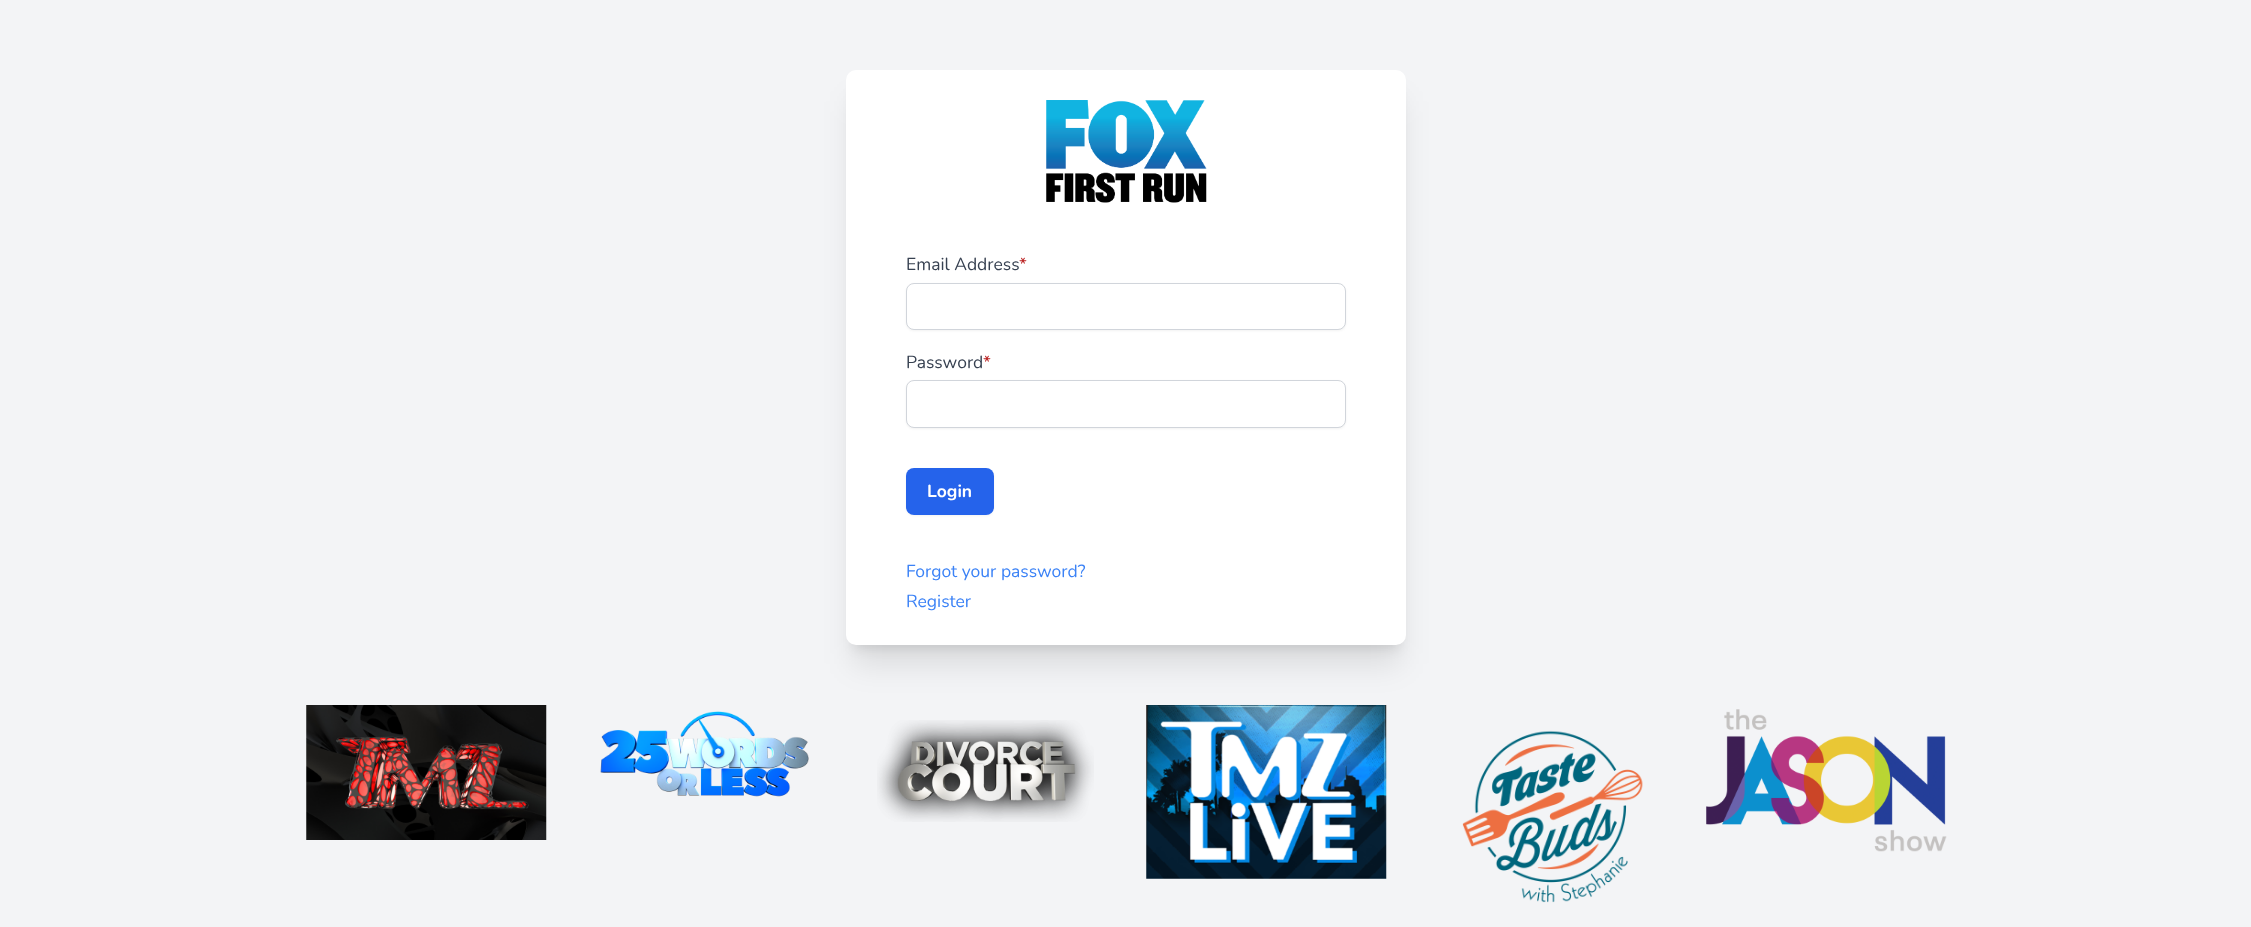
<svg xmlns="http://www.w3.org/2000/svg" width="2251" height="927">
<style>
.a{font:17.5px Nunito;fill:#374151}
.b{font:17.5px Nunito;fill:#b91c1c}
.c{font:bold 17.5px Nunito;fill:#fff}
.d{font:17.5px Nunito;fill:#3b82f6}
</style>
<rect width="100%" height="100%" fill="#f3f4f6"/>
<rect fill="#0000001a" filter="blur(6px)" x="854" y="88" width="545" height="560" rx="2.5"/>
<image href="3.png" x="600" y="711" width="209" height="86"/>
<image href="5.png" x="1146" y="705" width="241" height="174"/>
<rect fill="#0000001a" filter="blur(15.5px)" x="853" y="101" width="547" height="563" rx="4"/>
<rect fill="#fff" x="846" y="70" width="560" height="575" rx="10"/>
<image href="1.png" x="1046" y="100" width="161" height="103"/>
<rect fill="#0000000d" filter="blur(1px)" x="906" y="284" width="440" height="47" rx="8"/>
<rect fill="#fff" stroke="#d1d5db" x="906.5" y="283.5" width="439" height="46" rx="7.5"/>
<rect fill="#0000000d" filter="blur(1px)" x="906" y="381" width="440" height="48" rx="8"/>
<rect fill="#fff" stroke="#d1d5db" x="906.5" y="380.5" width="439" height="47" rx="7.5"/>
<rect fill="#0000000d" filter="blur(1px)" x="906" y="469" width="88" height="47" rx="8"/>
<rect fill="#2563eb" x="906" y="468" width="88" height="47" rx="8"/>
<image href="2.png" x="306" y="705" width="241" height="135"/>
<image href="4.png" x="877" y="720" width="217" height="102"/>
<image href="6.png" x="1462" y="730" width="181" height="173"/>
<image href="7.png" x="1706" y="709" width="241" height="143"/>
<text class="a" x="906" y="270">Email Address</text>
<text class="b" x="1019" y="270">*</text>
<text class="a" x="906" y="368">Password</text>
<text class="b" x="983" y="368">*</text>
<text class="c" x="927" y="497">Login</text>
<text class="d" x="906" y="577">Forgot your password?</text>
<text class="d" x="906" y="607">Register</text>
</svg>
